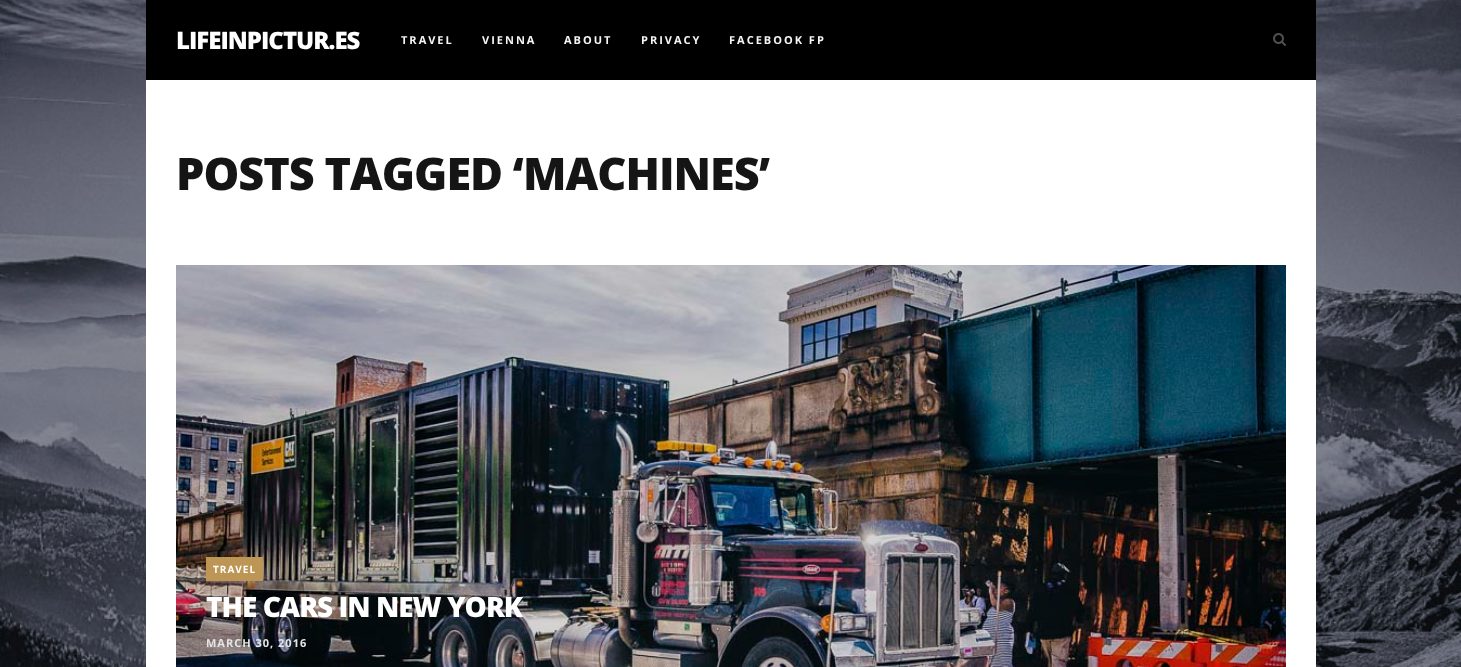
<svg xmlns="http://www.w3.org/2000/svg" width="1461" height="667">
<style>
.a{font:800 24px Open Sans;letter-spacing:-1px;fill:#fff}
.b{font:bold 11px Open Sans;letter-spacing:2px;fill:#f5f5f5}
.c{font:800 45px Open Sans;letter-spacing:-1px;fill:#151515}
.d{font:bold 10px Open Sans;letter-spacing:1px;fill:#fff}
.e{font:800 28px Open Sans;letter-spacing:-1px;fill:#fff}
.f{font:bold 11px Open Sans;letter-spacing:1px;fill:#e5e5e5}
</style>
<rect width="100%" height="100%" fill="#fff"/>
<image href="1.png" x="0" y="0" width="1461" height="667"/>
<path fill="#000" d="M146 0h1170v80H146z"/>
<image href="2.png" x="1273" y="33" width="13" height="13"/>
<path fill="#fff" d="M146 80h1170v587H146z"/>
<image href="3.png" x="176" y="265" width="1110" height="402"/>
<path fill="#bd9655" d="M206 557h57v24H206z"/>
<text class="a" x="176" y="49">LIFEINPICTUR.ES</text>
<text class="b" x="401" y="44">TRAVEL</text>
<text class="b" x="482" y="44">VIENNA</text>
<text class="b" x="564" y="44">ABOUT</text>
<text class="b" x="641" y="44">PRIVACY</text>
<text class="b" x="729" y="44">FACEBOOK FP</text>
<text class="c" x="176" y="190">POSTS TAGGED ‘MACHINES’</text>
<text class="d" x="213" y="573">TRAVEL</text>
<text class="e" x="206" y="617">THE CARS IN NEW YORK</text>
<text class="f" x="206" y="647">MARCH 30, 2016</text>
</svg>
